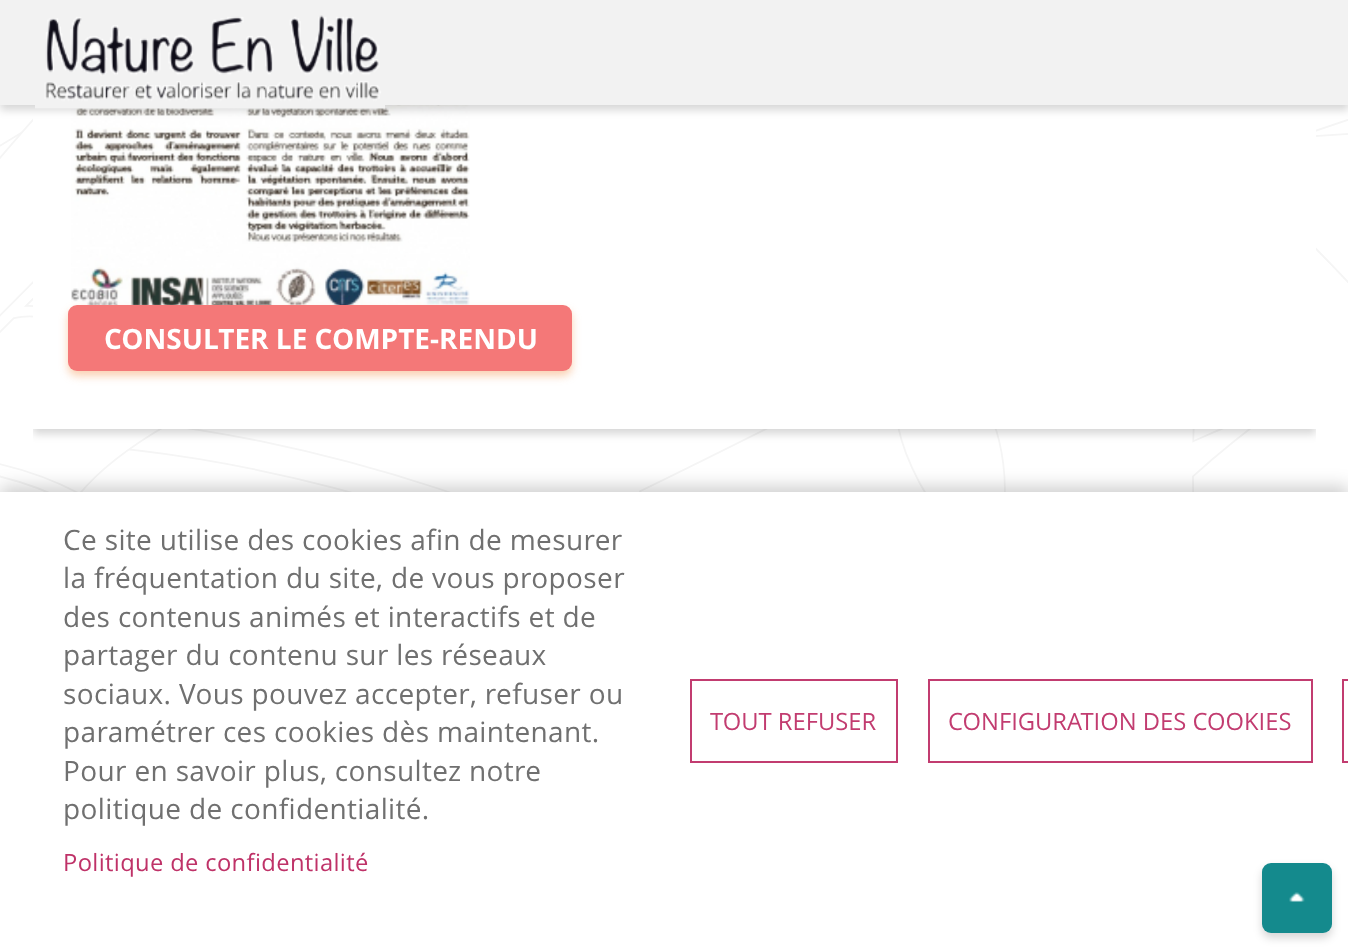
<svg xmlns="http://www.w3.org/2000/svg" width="1348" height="950">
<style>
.a{font:bold 28px Open Sans;fill:#fff}
.b{font:28px Open Sans;letter-spacing:0.35px;fill:#707070}
.c{font:23.75px Open Sans;letter-spacing:0.35px;fill:#bf3268}
.d{font:23.75px Open Sans;fill:#c23c70}
</style>
<defs>
<clipPath id="clip1"><path d="M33 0h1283v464H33z"/></clipPath>
</defs>
<rect width="100%" height="100%" fill="#fff"/>
<image href="2.png" x="0" y="105" width="1348" height="387"/>
<g clip-path="url(#clip1)">
<path fill="#00000029" filter="blur(4.5px)" d="M33 -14h1283v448H33z"/>
</g>
<path fill="#fff" d="M33 105h1283v324H33z"/>
<image href="3.png" x="71" y="105" width="399" height="203"/>
<path fill="#00000029" filter="blur(4.5px)" d="M0 5h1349v105H0z"/>
<path fill="#f2f2f2" d="M0 0h1348v105H0z"/>
<image href="1.png" x="35" y="15" width="350" height="94"/>
<rect fill="#f28c4166" filter="blur(4.5px)" x="68" y="310" width="504" height="66" rx="9"/>
<rect fill="#f47878" x="68" y="305" width="504" height="66" rx="9"/>
<path fill="#00000033" filter="blur(9px)" d="M0 487h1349v458H0z"/>
<path fill="#fff" d="M0 492h1348v458H0z"/>
<path fill="none" stroke="#c23c70" stroke-width="2" d="M691 680h206v82H691z"/>
<path fill="none" stroke="#c23c70" stroke-width="2" d="M929 680h383v82H929z"/>
<path fill="none" stroke="#c23c70" stroke-width="2" d="M1343 680h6v82H1343z"/>
<rect fill="#00000029" filter="blur(4.5px)" x="1262" y="868" width="70" height="70" rx="9"/>
<rect fill="#148a8d" x="1262" y="863" width="70" height="70" rx="9"/>
<image href="4.png" x="1289" y="892" width="16" height="10"/>
<text class="a" x="104" y="349">CONSULTER LE COMPTE-RENDU</text>
<text class="b" x="63" y="550">Ce site utilise des cookies afin de mesurer</text>
<text class="b" x="63" y="588">la fréquentation du site, de vous proposer</text>
<text class="b" x="63" y="627">des contenus animés et interactifs et de</text>
<text class="b" x="63" y="665">partager du contenu sur les réseaux</text>
<text class="b" x="63" y="704">sociaux. Vous pouvez accepter, refuser ou</text>
<text class="b" x="63" y="742">paramétrer ces cookies dès maintenant.</text>
<text class="b" x="63" y="781">Pour en savoir plus, consultez notre</text>
<text class="b" x="63" y="819">politique de confidentialité.</text>
<text class="c" x="63" y="871">Politique de confidentialité</text>
<text class="d" x="710" y="730">TOUT REFUSER</text>
<text class="d" x="948" y="730">CONFIGURATION DES COOKIES</text>
</svg>
